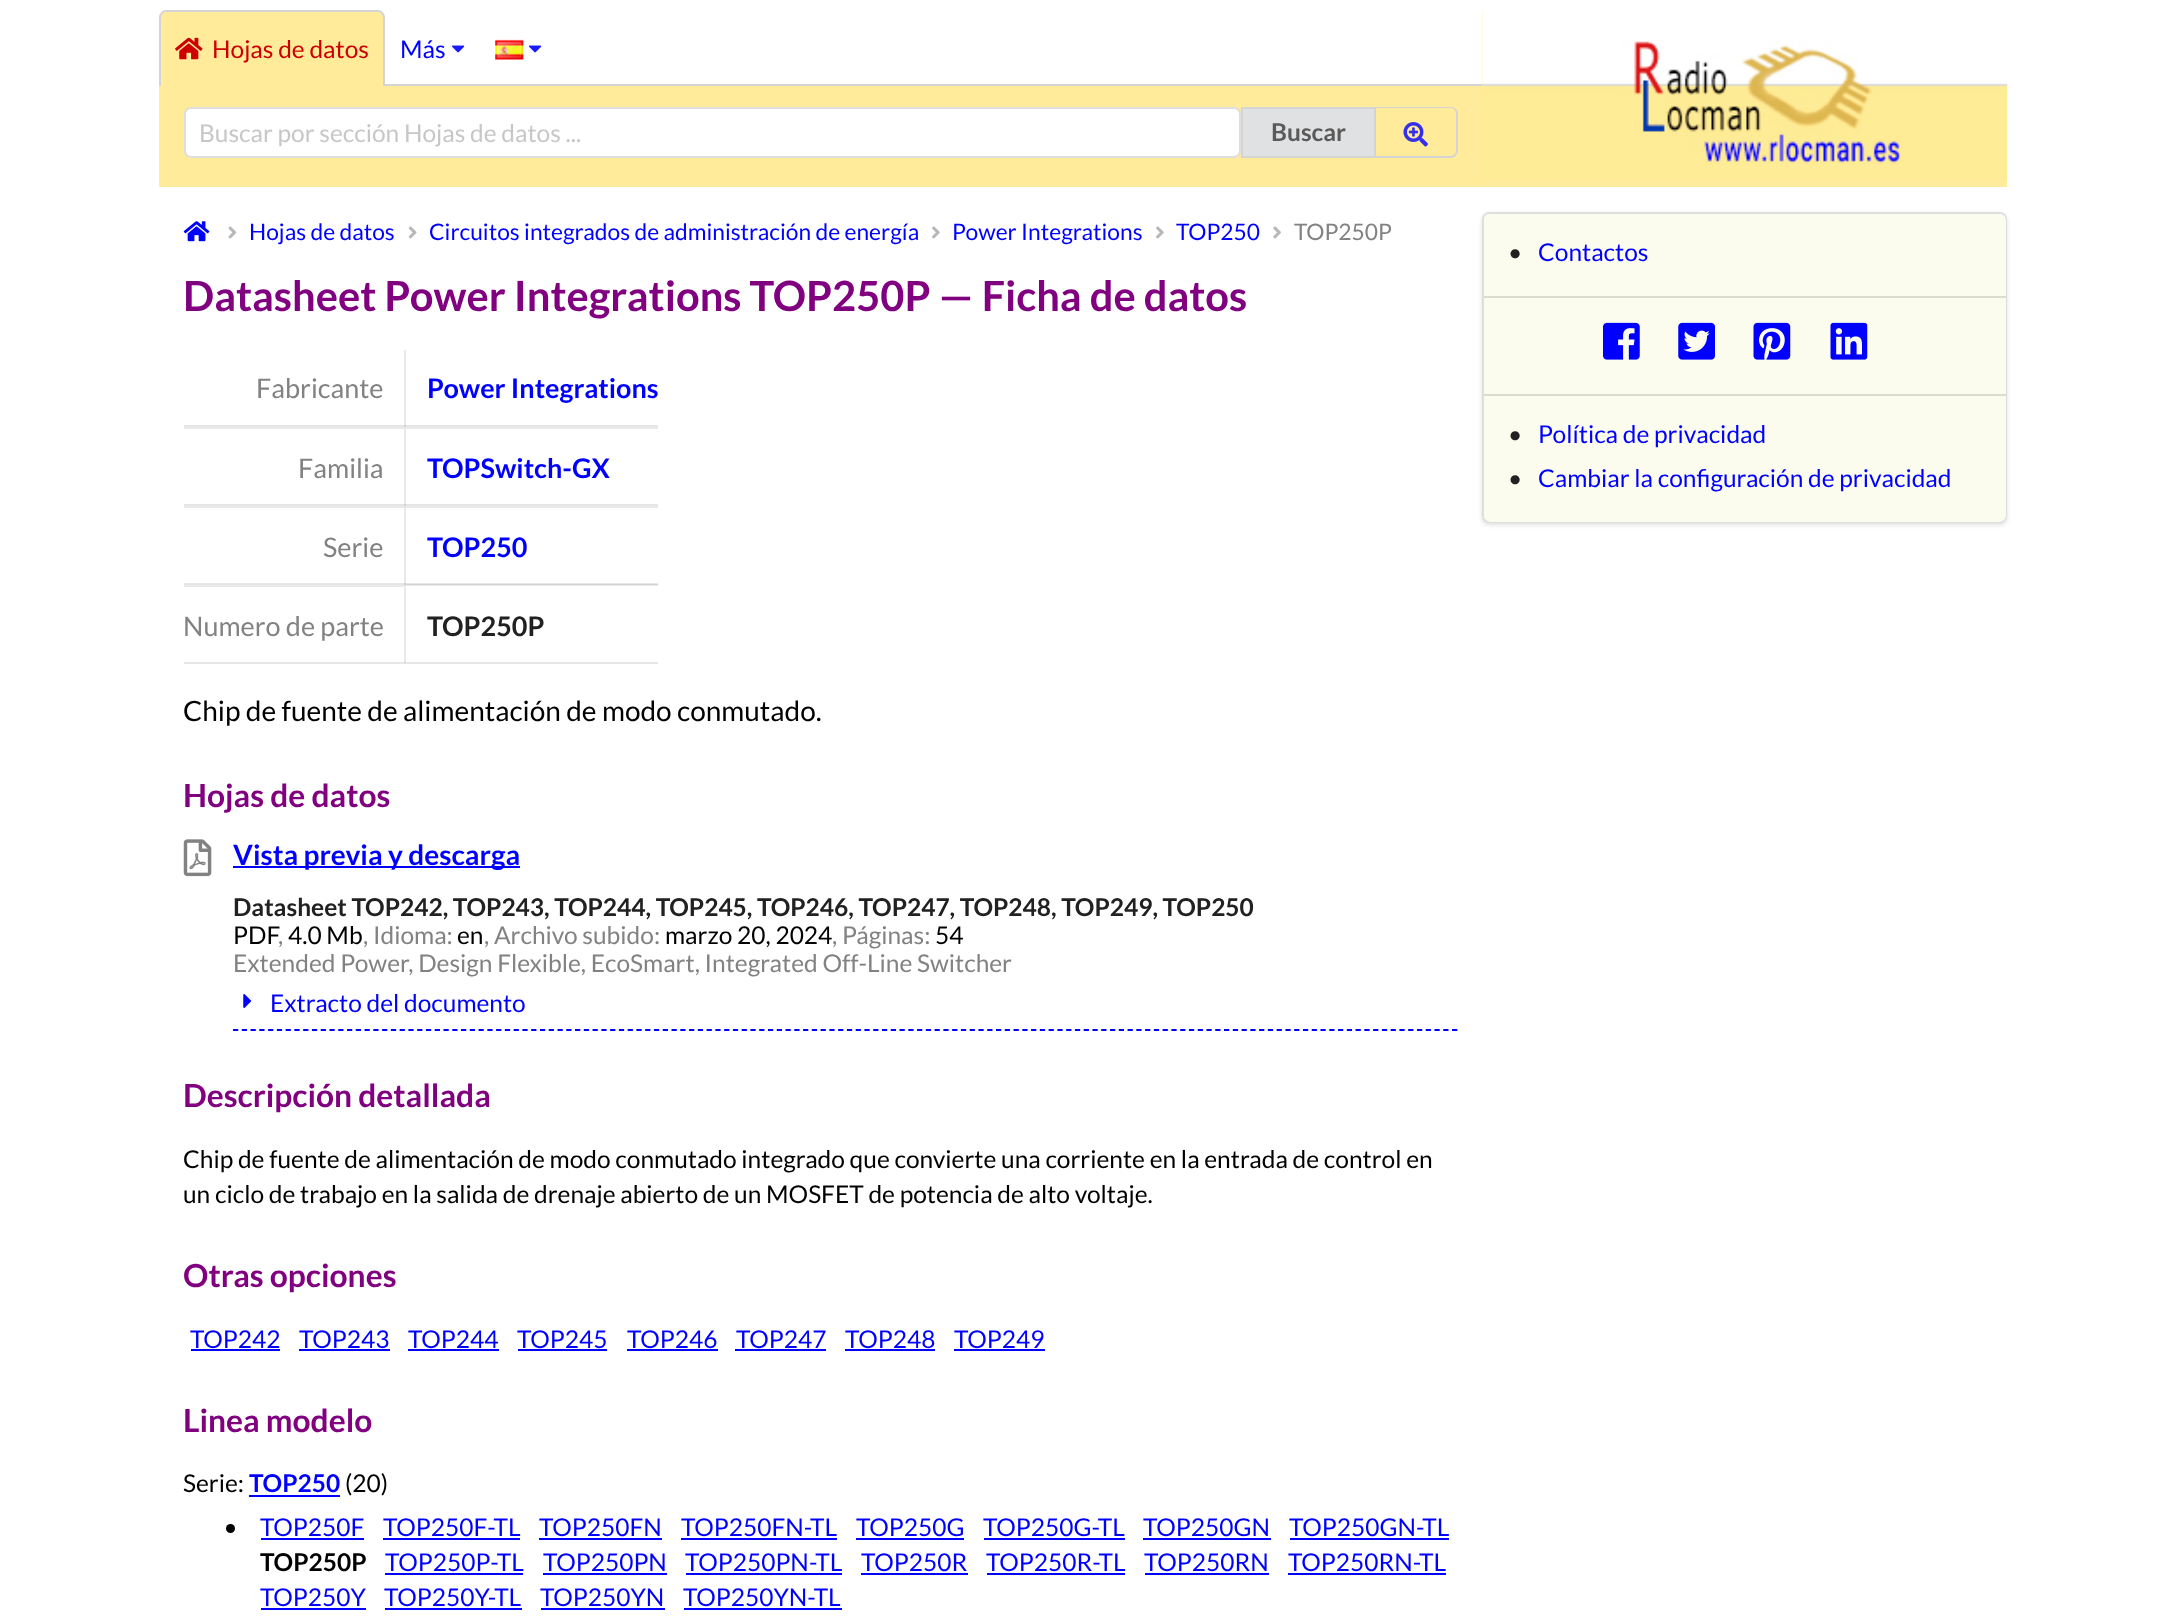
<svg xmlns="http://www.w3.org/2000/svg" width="2164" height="1623">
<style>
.a{font:24.5px Lato;fill:#c00}
.b{font:24.5px Lato;fill:#00f}
.c{font:24.5px Lato;fill:#c7c7c7}
.d{font:bold 24.5px Lato;fill:#5a5a5a}
.e{font:22.75px Lato;fill:#00f}
.f{font:22.75px Lato;fill:#828282}
.g{font:bold 41.65px Lato;fill:#800080}
.h{font:27px Lato;fill:#828282}
.i{font:bold 27px Lato;fill:#00f}
.j{font:bold 27px Lato;fill:#212121}
.k{font:28px Lato;fill:#000}
.l{font:bold 31.75px Lato;fill:#800080}
.m{font:bold 28px Lato;fill:#00f}
.n{font:bold 24.5px Lato;fill:#212121}
.o{font:24.5px Lato;fill:#000}
.p{font:24.5px Lato;fill:#828282}
.q{font:bold 24.5px Lato;fill:#00f}
.r{font:bold 24.5px Lato;fill:#000}
.s{font:24.5px Lato;fill:#212121}
</style>
<defs>
<clipPath id="clip1"><path d="M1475 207h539v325h-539zm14 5h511c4 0 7 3 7 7v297c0 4-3 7-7 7h-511c-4 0-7-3-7-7v-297c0-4 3-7 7-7z" clip-rule="evenodd"/></clipPath>
</defs>
<rect width="100%" height="100%" fill="#fff"/>
<path fill="#e9e9e9" d="M404 350h2v77H404z"/>
<path fill="#ffeb99" d="M159 86h1323v101H159z"/>
<path fill="#d4d4d5" d="M385 84h1097v2H385z"/>
<path fill="#ffeb99" d="M166 11h212c4 0 7 3 7 7v68h-226v-68c0-4 3-7 7-7z"/>
<path fill="#d4d4d5" fill-rule="evenodd" d="M166 10h212c4 0 7 4 7 8v68h-226v-68c0-4 3-8 7-8zm0 2h212c3 0 5 3 5 6v68h-222v-68c0-3 2-6 5-6z"/>
<image href="1.png" x="175" y="37" width="28" height="23"/>
<image href="2.png" x="452" y="45" width="13" height="8"/>
<image href="3.png" x="495" y="39" width="29" height="21"/>
<image href="2.png" x="529" y="45" width="13" height="8"/>
<rect fill="#fff" x="184" y="107" width="1057" height="51" rx="7"/>
<rect fill="none" stroke="#22242626" stroke-width="2" x="185" y="108" width="1055" height="49" rx="6"/>
<path fill="#e0e1e2" stroke="#d4d4d5" stroke-width="2" d="M1242 108h133v49H1242z"/>
<path fill="#d4d4d5" fill-rule="evenodd" d="M1376 107h75c4 0 7 3 7 7v36c0 4-3 8-7 8h-75zm0 1h75c3 0 5 3 5 6v36c0 3-2 6-5 6h-75z"/>
<image href="4.png" x="1403" y="122" width="25" height="25"/>
<path fill="#ffeb99" d="M1482 11h525v176H1482z"/>
<image href="5.png" x="1482" y="11" width="526" height="168"/>
<image href="6.png" x="183" y="221" width="27" height="21"/>
<image href="7.png" x="228" y="226" width="9" height="13"/>
<image href="8.png" x="408" y="226" width="9" height="13"/>
<image href="9.png" x="932" y="226" width="8" height="13"/>
<image href="9.png" x="1156" y="226" width="8" height="13"/>
<image href="10.png" x="1273" y="226" width="8" height="13"/>
<path fill="#e6e6e6" d="M184 425h474v2H184z"/>
<path fill="#d2d3d3" d="M404 425h2v2H404z"/>
<path fill="#e6e6e6" d="M184 504h474v2H184z"/>
<path fill="#e9e9e9" d="M184 427h220v2H184z"/>
<path fill="#e9e9e9" d="M404 427h254v2h-252z"/>
<path fill="#2224261a" d="M404 506v-79l2 2v77z"/>
<path fill="#e6e6e6" d="M184 583h474v2H184z"/>
<path fill="#e9e9e9" d="M184 506h220v2H184z"/>
<path fill="#e9e9e9" d="M404 506h254v2h-252z"/>
<path fill="#2224261a" d="M404 584v-78l2 2v76z"/>
<path fill="#e6e6e6" d="M184 662h474v2H184z"/>
<path fill="#e9e9e9" d="M184 585h220v2H184z"/>
<path fill="#2224261a" d="M404 584h254v2h-252z"/>
<path fill="#2224261a" d="M404 663v-79l2 2v77z"/>
<image href="11.png" x="183" y="839" width="29" height="38"/>
<path fill="#00f" d="M233 866h287v2H233z"/>
<path fill="none" stroke="#00f" stroke-width="1.8" stroke-dasharray="5.25 3.52" d="M233 1030h1225"/>
<image href="12.png" x="243" y="994" width="9" height="14"/>
<path fill="#00f" d="M191 1349h89v2H191z"/>
<path fill="#00f" d="M299 1349h91v2H299z"/>
<path fill="#00f" d="M408 1349h91v2H408z"/>
<path fill="#00f" d="M518 1349h89v2H518z"/>
<path fill="#00f" d="M627 1349h91v2H627z"/>
<path fill="#00f" d="M735 1349h91v2H735z"/>
<path fill="#00f" d="M845 1349h90v2H845z"/>
<path fill="#00f" d="M954 1349h91v2H954z"/>
<path fill="#00f" d="M249 1495h91v2H249z"/>
<circle fill="#000" cx="230.5" cy="1528.5" r="4.5"/>
<path fill="#00f" d="M261 1538h103v2H261z"/>
<path fill="#00f" d="M383 1538h137v2H383z"/>
<path fill="#00f" d="M539 1538h123v2H539z"/>
<path fill="#00f" d="M681 1538h156v2H681z"/>
<path fill="#00f" d="M856 1538h108v2H856z"/>
<path fill="#00f" d="M984 1538h141v2H984z"/>
<path fill="#00f" d="M1143 1538h128v2H1143z"/>
<path fill="#00f" d="M1290 1538h159v2H1290z"/>
<path fill="#00f" d="M385 1573h138v2H385z"/>
<path fill="#00f" d="M543 1573h124v2H543z"/>
<path fill="#00f" d="M686 1573h156v2H686z"/>
<path fill="#00f" d="M861 1573h107v2H861z"/>
<path fill="#00f" d="M987 1573h138v2H987z"/>
<path fill="#00f" d="M1145 1573h124v2H1145z"/>
<path fill="#00f" d="M1288 1573h158v2H1288z"/>
<path fill="#00f" d="M261 1608h105v2H261z"/>
<path fill="#00f" d="M385 1608h137v2H385z"/>
<path fill="#00f" d="M541 1608h124v2H541z"/>
<path fill="#00f" d="M684 1608h158v2H684z"/>
<g clip-path="url(#clip1)">
<rect fill="#22242626" filter="blur(2px)" x="1482" y="214" width="525" height="311" rx="7"/>
</g>
<rect fill="none" stroke="#22242626" stroke-width="2" x="1483" y="213" width="523" height="309" rx="6"/>
<path fill="#fcfcee" d="M1491 214h508c4 0 7 3 7 7v75h-522v-75c0-4 3-7 7-7z"/>
<path fill="#fcfcee" d="M1484 298h522v96H1484z"/>
<path fill="#dbdcd0" d="M1484 296h522v2H1484z"/>
<image href="13.png" x="1603" y="322" width="37" height="38"/>
<image href="14.png" x="1678" y="322" width="37" height="38"/>
<image href="15.png" x="1753" y="322" width="38" height="38"/>
<image href="16.png" x="1830" y="322" width="38" height="38"/>
<path fill="#fcfcee" d="M1484 394h522v121c0 4-3 7-7 7h-508c-4 0-7-3-7-7z"/>
<path fill="#dbdcd0" d="M1484 394h522v2H1484z"/>
<text class="a" x="212" y="58">Hojas de datos</text>
<text class="b" x="400" y="58">Más</text>
<text class="c" x="199" y="142">Buscar por sección Hojas de datos ...</text>
<text class="d" x="1271" y="141">Buscar</text>
<text class="e" x="249" y="240">Hojas de datos</text>
<text class="e" x="429" y="240">Circuitos integrados de administración de energía</text>
<text class="e" x="952" y="240">Power Integrations</text>
<text class="e" x="1176" y="240">TOP250</text>
<text class="f" x="1294" y="240">TOP250P</text>
<text class="g" x="183" y="311">Datasheet Power Integrations TOP250P — Ficha de datos</text>
<text class="h" x="256" y="398">Fabricante</text>
<text class="i" x="427" y="398">Power Integrations</text>
<text class="h" x="298" y="478">Familia</text>
<text class="i" x="427" y="478">TOPSwitch-GX</text>
<text class="h" x="323" y="557">Serie</text>
<text class="i" x="427" y="557">TOP250</text>
<text class="h" x="183" y="636">Numero de parte</text>
<text class="j" x="427" y="636">TOP250P</text>
<text class="k" x="183" y="721">Chip de fuente de alimentación de modo conmutado.</text>
<text class="l" x="183" y="807">Hojas de datos</text>
<text class="m" x="233" y="865">Vista previa y descarga</text>
<text class="n" x="233" y="916">Datasheet TOP242, TOP243, TOP244, TOP245, TOP246, TOP247, TOP248, TOP249, TOP250</text>
<text class="o" x="233" y="944">PDF</text>
<text class="p" x="278" y="944">,</text>
<text class="o" x="288" y="944">4.0 Mb</text>
<text class="p" x="363" y="944">, Idioma:</text>
<text class="o" x="457" y="944">en</text>
<text class="p" x="484" y="944">, Archivo subido:</text>
<text class="o" x="665" y="944">marzo 20, 2024</text>
<text class="p" x="832" y="944">, Páginas:</text>
<text class="o" x="935" y="944">54</text>
<text class="p" x="233" y="972">Extended Power, Design Flexible, EcoSmart, Integrated Off-Line Switcher</text>
<text class="b" x="270" y="1012">Extracto del documento</text>
<text class="l" x="183" y="1107">Descripción detallada</text>
<text class="o" x="183" y="1168">Chip de fuente de alimentación de modo conmutado integrado que convierte una corriente en la entrada de control en</text>
<text class="o" x="183" y="1203">un ciclo de trabajo en la salida de drenaje abierto de un MOSFET de potencia de alto voltaje.</text>
<text class="l" x="183" y="1287">Otras opciones</text>
<text class="b" x="190" y="1348">TOP242</text>
<text class="b" x="299" y="1348">TOP243</text>
<text class="b" x="408" y="1348">TOP244</text>
<text class="b" x="517" y="1348">TOP245</text>
<text class="b" x="627" y="1348">TOP246</text>
<text class="b" x="736" y="1348">TOP247</text>
<text class="b" x="845" y="1348">TOP248</text>
<text class="b" x="954" y="1348">TOP249</text>
<text class="l" x="183" y="1432">Linea modelo</text>
<text class="o" x="183" y="1492">Serie:</text>
<text class="q" x="249" y="1492">TOP250</text>
<text class="o" x="345" y="1492">(20)</text>
<text class="b" x="260" y="1536">TOP250F</text>
<text class="b" x="383" y="1536">TOP250F-TL</text>
<text class="b" x="539" y="1536">TOP250FN</text>
<text class="b" x="681" y="1536">TOP250FN-TL</text>
<text class="b" x="856" y="1536">TOP250G</text>
<text class="b" x="983" y="1536">TOP250G-TL</text>
<text class="b" x="1143" y="1536">TOP250GN</text>
<text class="b" x="1289" y="1536">TOP250GN-TL</text>
<text class="r" x="260" y="1571">TOP250P</text>
<text class="b" x="385" y="1571">TOP250P-TL</text>
<text class="b" x="543" y="1571">TOP250PN</text>
<text class="b" x="685" y="1571">TOP250PN-TL</text>
<text class="b" x="861" y="1571">TOP250R</text>
<text class="b" x="986" y="1571">TOP250R-TL</text>
<text class="b" x="1144" y="1571">TOP250RN</text>
<text class="b" x="1288" y="1571">TOP250RN-TL</text>
<text class="b" x="260" y="1606">TOP250Y</text>
<text class="b" x="384" y="1606">TOP250Y-TL</text>
<text class="b" x="540" y="1606">TOP250YN</text>
<text class="b" x="683" y="1606">TOP250YN-TL</text>
<text class="s" x="1508" y="261">•</text>
<text class="b" x="1538" y="261">Contactos</text>
<text class="s" x="1508" y="443">•</text>
<text class="b" x="1538" y="443">Política de privacidad</text>
<text class="s" x="1508" y="487">•</text>
<text class="b" x="1538" y="487">Cambiar la configuración de privacidad</text>
</svg>
